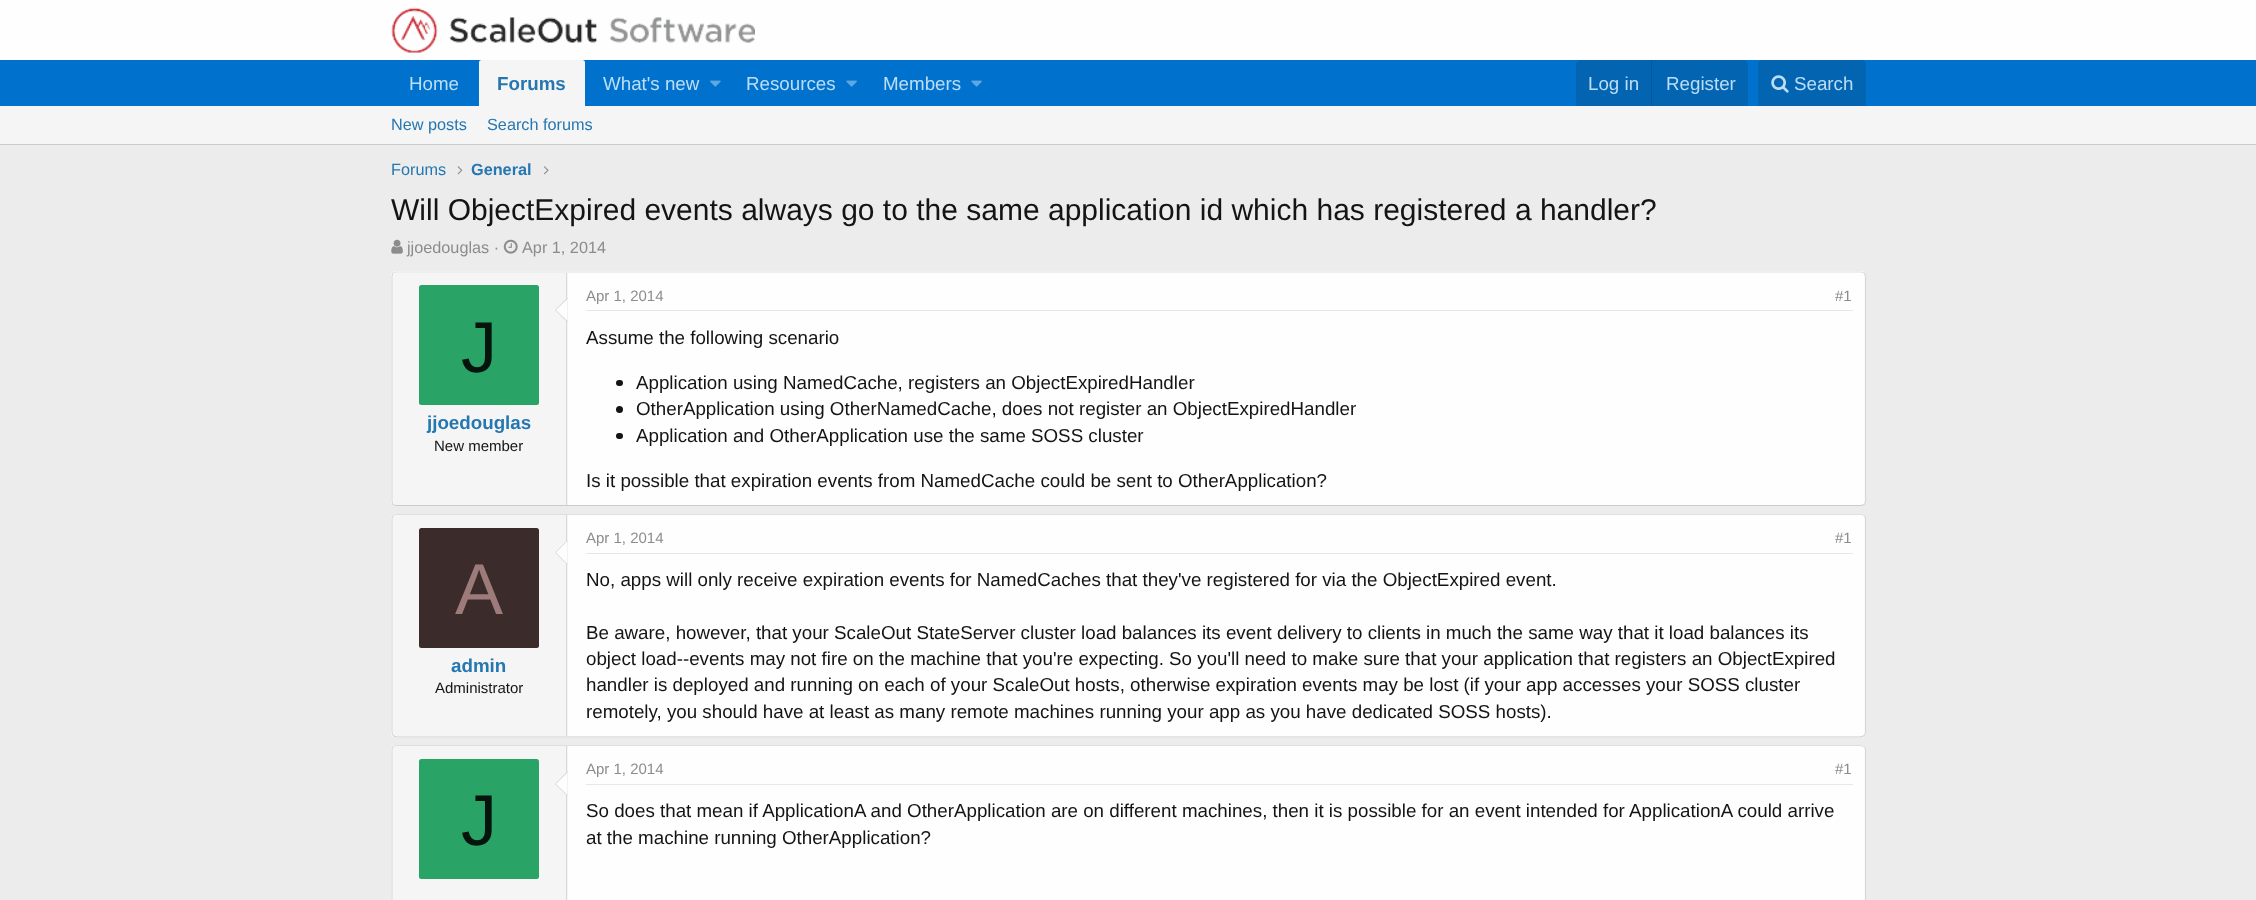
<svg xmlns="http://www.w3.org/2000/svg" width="2256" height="900">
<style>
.a{font:18.75px Liberation Sans;fill:#bcdef5}
.b{font:bold 18.75px Liberation Sans;fill:#2577b1}
.c{font:16.25px Liberation Sans;fill:#2577b1}
.d{font:bold 16.25px Liberation Sans;fill:#2577b1}
.e{font:30px Liberation Sans;fill:#141414}
.f{font:16.25px Liberation Sans;fill:#8c8c8c}
.g{font:72px Liberation Sans;fill:#05140d}
.h{font:15px Liberation Sans;fill:#141414}
.i{font:15px Liberation Sans;fill:#8c8c8c}
.j{font:18.75px Liberation Sans;fill:#141414}
.k{font:72px Liberation Sans;fill:#9d7b7b}
</style>
<rect width="100%" height="100%" fill="#ececec"/>
<path fill="#fefefe" d="M0 0h2256v60H0z"/>
<image href="1.png" x="391" y="7" width="364" height="46"/>
<path fill="#0072ce" d="M0 60h2256v46H0z"/>
<path fill="#f5f5f5" d="M481.5 60h101c1.5 0 2.5 1 2.5 2.5v43.5h-106v-43.5c0-1.5 1-2.5 2.5-2.5z"/>
<image href="2.png" x="710" y="80" width="11" height="7"/>
<image href="3.png" x="846" y="80" width="11" height="7"/>
<image href="3.png" x="971" y="80" width="11" height="7"/>
<path fill="#0364b2" d="M1581 60h162c3 0 5 2 5 5v41h-172v-41c0-3 2-5 5-5z"/>
<path fill="#06589a" d="M1651 60h1v46H1651z"/>
<path fill="#0364b2" d="M1763 60h98c3 0 5 2 5 5v41h-108v-41c0-3 2-5 5-5z"/>
<image href="4.png" x="1771" y="75" width="18" height="18"/>
<path fill="#f5f5f5" d="M0 106h2256v38H0z"/>
<path fill="#cbcbcb" d="M0 144h2256v1H0z"/>
<image href="5.png" x="457" y="166" width="6" height="9"/>
<image href="6.png" x="543" y="166" width="6" height="9"/>
<image href="7.png" x="391" y="239" width="12" height="15"/>
<image href="8.png" x="503" y="239" width="15" height="15"/>
<rect fill="#fefefe" x="391" y="271" width="1475" height="235" rx="5"/>
<path fill="none" stroke="#dfdfdf" stroke-width="1.2" d="M393 273l3-1h1465l3.5 1"/>
<path fill="none" stroke="#d8d8d8" stroke-width="1.2" d="M1864.5 273l1 3v225.5l-1 3"/>
<path fill="none" stroke="#cbcbcb" stroke-width="1.2" d="M1864.5 504.5l-3.5 1h-1465l-3-1"/>
<path fill="none" stroke="#d8d8d8" stroke-width="1.2" d="M393 504.5l-1-3.5v-225l1-3"/>
<path fill="#f5f5f5" d="M397 273h171v232h-171c-2 0-4-2-4-4v-224c0-2 2-4 4-4z"/>
<path fill="#d8d8d8" d="M566 273h1v232H566z"/>
<path fill="#d8d8d8" d="M567.5 297.5v25l-12.5-12.5z"/>
<path fill="#fefefe" d="M567.5 299v22l-11.5-11z"/>
<rect fill="#29a366" x="419" y="285" width="120" height="120" rx="2.5"/>
<path fill="#e7e7e7" d="M586 310h1267v1H586z"/>
<rect fill="#141414" x="616" y="380" width="7" height="6" rx="3"/>
<circle fill="#141414" cx="619.5" cy="409.5" r="3.5"/>
<rect fill="#141414" x="616" y="433" width="7" height="6" rx="3"/>
<rect fill="#fefefe" x="391" y="514" width="1475" height="224" rx="5"/>
<path fill="none" stroke="#dfdfdf" stroke-width="1.2" d="M393 515.5l3-1h1465l3.5 1"/>
<path fill="none" stroke="#d8d8d8" stroke-width="1.2" d="M1864.5 515.5l1 3v178.5v35.5l-1 3"/>
<path fill="none" stroke="#cbcbcb" stroke-width="1.2" d="M1864.5 735.5l-3.5 1.5h-1465l-3-1.5"/>
<path fill="none" stroke="#d8d8d8" stroke-width="1.2" d="M393 735.5l-1-3v-214l1-3"/>
<path fill="#f5f5f5" d="M397 515h171v221h-171c-2 0-4-2-4-4v-213c0-2 2-4 4-4z"/>
<path fill="#d8d8d8" d="M566 515h1v221H566z"/>
<path fill="#d8d8d8" d="M567.5 540v25l-12.5-12.5z"/>
<path fill="#fefefe" d="M567.5 541v23l-11.5-11.5z"/>
<rect fill="#3b2b2b" x="419" y="528" width="120" height="120" rx="2.5"/>
<path fill="#e7e7e7" d="M586 553h1267v1H586z"/>
<rect fill="#fefefe" x="391" y="745" width="1475" height="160" rx="5"/>
<path fill="none" stroke="#dfdfdf" stroke-width="1.2" d="M393 747l3-1.5h1465l3.5 1.5"/>
<path fill="none" stroke="#d8d8d8" stroke-width="1.2" d="M1864.5 747c.5 .5 1 2 1 3v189c0 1-.5 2-1 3"/>
<path fill="none" stroke="#d8d8d8" stroke-width="1.2" d="M393 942c-.5-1-1-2-1-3v-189c0-1 .5-2.5 1-3"/>
<path fill="#f5f5f5" d="M397 746h171v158h-171c-2 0-4-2-4-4v-150c0-2 2-4 4-4z"/>
<path fill="#d8d8d8" d="M566 746h1v154H566z"/>
<path fill="#d8d8d8" d="M567.5 771v25l-12.5-12z"/>
<path fill="#fefefe" d="M567.5 772.5v22.5l-11.5-11z"/>
<rect fill="#29a366" x="419" y="759" width="120" height="120" rx="2.5"/>
<path fill="#e7e7e7" d="M586 784h1267v1H586z"/>
<text class="a" x="409" y="90">Home</text>
<text class="b" x="497" y="90">Forums</text>
<text class="a" x="603" y="90">What's new</text>
<text class="a" x="746" y="90">Resources</text>
<text class="a" x="883" y="90">Members</text>
<text class="a" x="1588" y="90">Log in</text>
<text class="a" x="1666" y="90">Register</text>
<text class="a" x="1794" y="90">Search</text>
<text class="c" x="391" y="130">New posts</text>
<text class="c" x="487" y="130">Search forums</text>
<text class="c" x="391" y="175">Forums</text>
<text class="d" x="471" y="175">General</text>
<text class="e" x="391" y="220">Will ObjectExpired events always go to the same application id which has registered a handler?</text>
<text class="f" x="407" y="253">jjoedouglas ·</text>
<text class="f" x="522" y="253">Apr 1, 2014</text>
<text class="g" x="461" y="372">J</text>
<text class="b" x="427" y="429">jjoedouglas</text>
<text class="h" x="434" y="451">New member</text>
<text class="i" x="586" y="301">Apr 1, 2014</text>
<text class="i" x="1835" y="301">#1</text>
<text class="j" x="586" y="344">Assume the following scenario</text>
<text class="j" x="636" y="389">Application using NamedCache, registers an ObjectExpiredHandler</text>
<text class="j" x="636" y="415">OtherApplication using OtherNamedCache, does not register an ObjectExpiredHandler</text>
<text class="j" x="636" y="442">Application and OtherApplication use the same SOSS cluster</text>
<text class="j" x="586" y="487">Is it possible that expiration events from NamedCache could be sent to OtherApplication?</text>
<text class="k" x="455" y="614">A</text>
<text class="b" x="451" y="672">admin</text>
<text class="h" x="435" y="693">Administrator</text>
<text class="i" x="586" y="543">Apr 1, 2014</text>
<text class="i" x="1835" y="543">#1</text>
<text class="j" x="586" y="586">No, apps will only receive expiration events for NamedCaches that they've registered for via the ObjectExpired event.</text>
<text class="j" x="586" y="639">Be aware, however, that your ScaleOut StateServer cluster load balances its event delivery to clients in much the same way that it load balances its</text>
<text class="j" x="586" y="665">object load--events may not fire on the machine that you're expecting. So you'll need to make sure that your application that registers an ObjectExpired</text>
<text class="j" x="586" y="691">handler is deployed and running on each of your ScaleOut hosts, otherwise expiration events may be lost (if your app accesses your SOSS cluster</text>
<text class="j" x="586" y="718">remotely, you should have at least as many remote machines running your app as you have dedicated SOSS hosts).</text>
<text class="g" x="461" y="845">J</text>
<text class="i" x="586" y="774">Apr 1, 2014</text>
<text class="i" x="1835" y="774">#1</text>
<text class="j" x="586" y="817">So does that mean if ApplicationA and OtherApplication are on different machines, then it is possible for an event intended for ApplicationA could arrive</text>
<text class="j" x="586" y="844">at the machine running OtherApplication?</text>
</svg>
